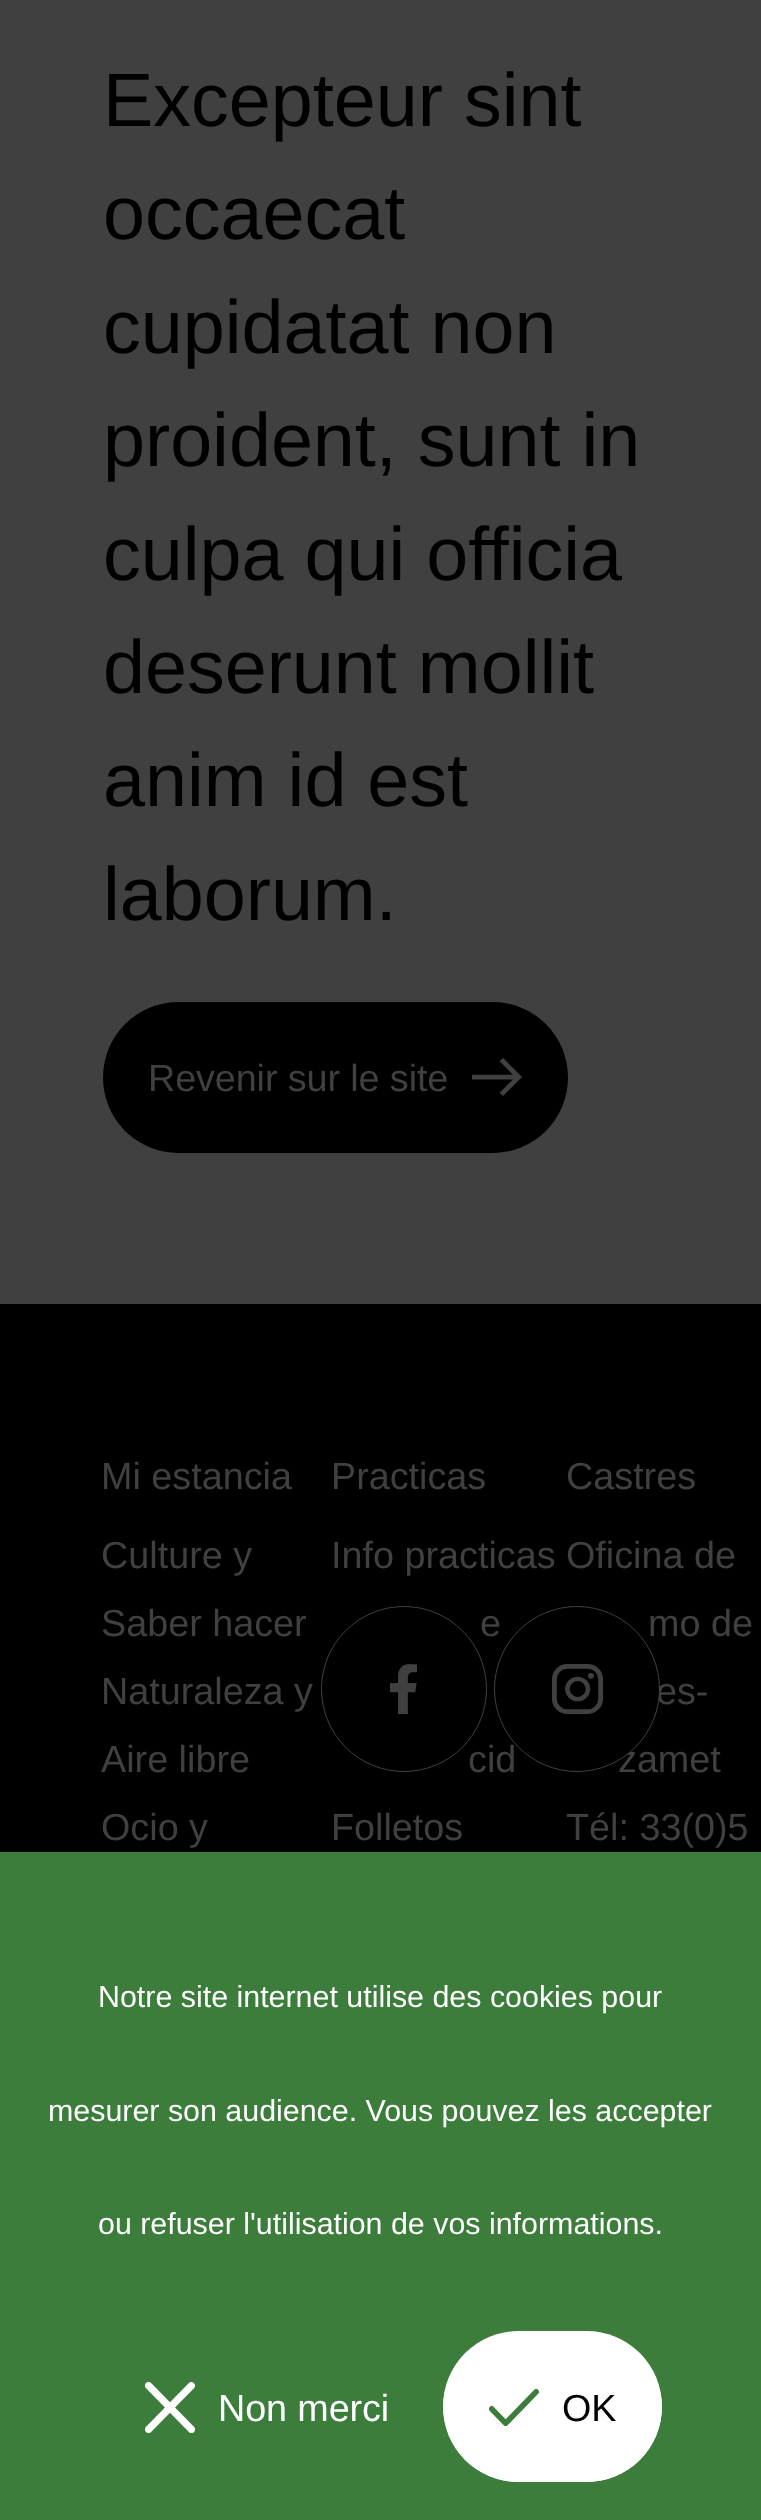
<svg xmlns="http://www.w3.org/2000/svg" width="761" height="2520">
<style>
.a{font:75.5px Liberation Sans;fill:#000}
.b{font:37.75px Liberation Sans;letter-spacing:-0.1px;fill:#404040}
.c{font:37.75px Liberation Sans;fill:#404040}
.d{font:30.4px Liberation Sans;fill:#fff}
.e{font:37.75px Liberation Sans;letter-spacing:-0.1px;fill:#fff}
.f{font:37.75px Liberation Sans;letter-spacing:-0.1px;fill:#000}
</style>
<defs>
<clipPath id="clip1"><rect x="443" y="2331" width="219" height="151" rx="75.5"/></clipPath>
</defs>
<rect width="100%" height="100%" fill="#404040"/>
<rect fill="#000" x="103" y="1002" width="465" height="151" rx="75.5"/>
<image href="1.png" x="472" y="1058" width="50" height="38"/>
<path fill="#000" d="M0 1304h761v548H0z"/>
<circle fill="none" stroke="#404040" cx="404" cy="1689" r="82.5"/>
<image href="2.png" x="390" y="1664" width="27" height="50"/>
<path fill="#3c7d3c" d="M0 1852h761v668H0z"/>
<image href="4.png" x="145" y="2382" width="50" height="51"/>
<rect fill="#fff" x="443" y="2331" width="219" height="151" rx="75.5"/>
<g clip-path="url(#clip1)">
<rect fill="#fff" x="443" y="2332" width="219" height="151" rx="75.5"/>
</g>
<image href="5.png" x="489" y="2389" width="50" height="37"/>
<text class="a" x="103" y="126">Excepteur sint</text>
<text class="a" x="103" y="239">occaecat</text>
<text class="a" x="103" y="353">cupidatat non</text>
<text class="a" x="103" y="466">proident, sunt in</text>
<text class="a" x="103" y="580">culpa qui officia</text>
<text class="a" x="103" y="693">deserunt mollit</text>
<text class="a" x="103" y="806">anim id est</text>
<text class="a" x="103" y="920">laborum.</text>
<text class="b" x="148" y="1091">Revenir sur le site</text>
<text class="c" x="101" y="1489">Mi estancia</text>
<text class="c" x="101" y="1568">Culture y</text>
<text class="c" x="101" y="1636">Saber hacer</text>
<text class="c" x="101" y="1704">Naturaleza y</text>
<text class="c" x="101" y="1772">Aire libre</text>
<text class="c" x="101" y="1840">Ocio y</text>
<text class="c" x="331" y="1489">Practicas</text>
<text class="c" x="331" y="1568">Info practicas</text>
<text class="c" x="480" y="1636">e</text>
<text class="c" x="468" y="1772">cid</text>
<text class="c" x="331" y="1840">Folletos</text>
<text class="c" x="566" y="1489">Castres</text>
<text class="c" x="566" y="1568">Oficina de</text>
<text class="c" x="648" y="1636">mo de</text>
<text class="c" x="656" y="1704">es-</text>
<text class="c" x="618" y="1772">zamet</text>
<text class="c" x="566" y="1840">Tél: 33(0)5</text>
<circle fill="#000" stroke="#404040" cx="577" cy="1689" r="82.5"/>
<image href="3.png" x="552" y="1664" width="51" height="50"/>
<text class="d" x="98" y="2007">Notre site internet utilise des cookies pour</text>
<text class="d" x="48" y="2121">mesurer son audience. Vous pouvez les accepter</text>
<text class="d" x="98" y="2234">ou refuser l'utilisation de vos informations.</text>
<text class="e" x="218" y="2421">Non merci</text>
<text class="f" x="562" y="2421">OK</text>
</svg>
